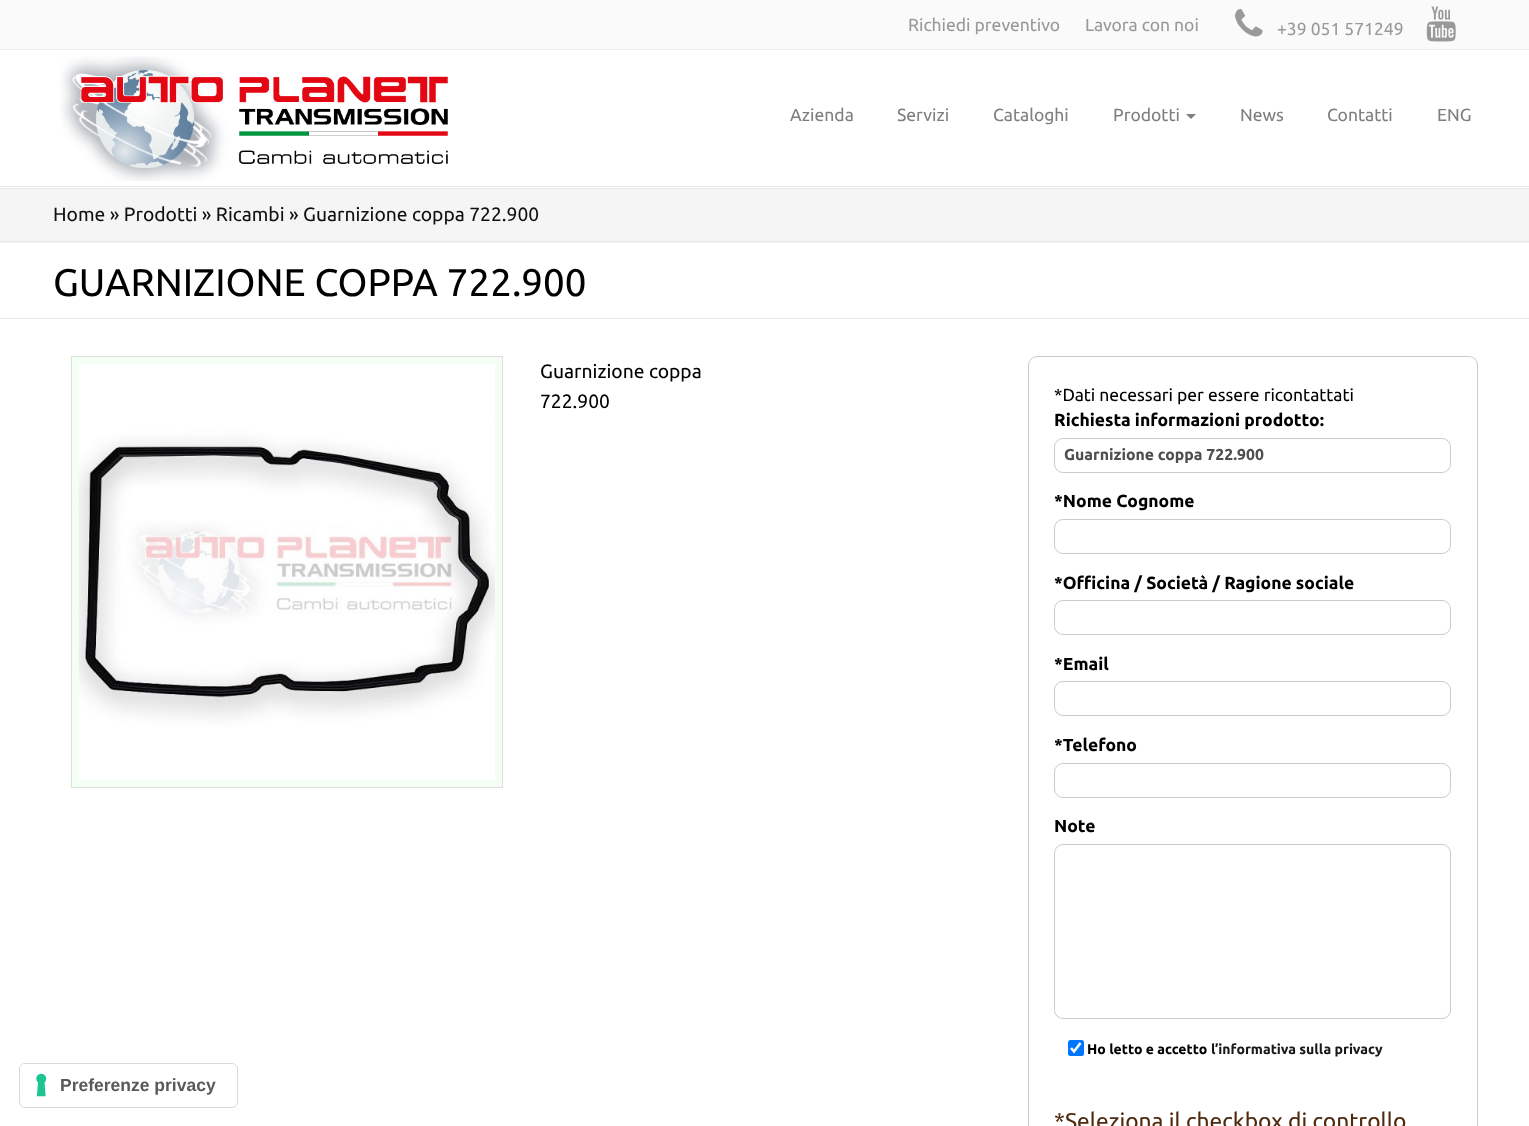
<svg xmlns="http://www.w3.org/2000/svg" width="1529" height="1126">
<style>
.a{font:17.5px Ubuntu;fill:#999}
.b{font:17.5px Ubuntu;fill:#7f7f7f}
.c{font:19.25px Ubuntu;fill:#111}
.d{font:38.5px Ubuntu;fill:#000}
.e{font:19.25px Ubuntu;fill:#000}
.f{font:17.5px Ubuntu;fill:#000}
.g{font:bold 17.5px Ubuntu;fill:#000}
.h{font:bold 15.75px Ubuntu;fill:#4f4f4f}
.i{font:bold 14px Ubuntu;fill:#000}
.j{font:bold 14px Ubuntu;fill:#191919}
.k{font:22.75px Ubuntu;fill:#4f2a0f}
.l{font:bold 17.5px Liberation Sans;fill:#595959}
</style>
<rect width="100%" height="100%" fill="#fff"/>
<path fill="#fafafa" d="M0 0h1529v49H0z"/>
<path fill="#ededed" d="M0 49h1529v1H0z"/>
<image href="1.png" x="1235" y="9" width="28" height="28"/>
<image href="2.png" x="1426" y="6" width="30" height="36"/>
<path fill="#e7e7e7" d="M0 186h1529v1H0z"/>
<image href="3.png" x="60" y="56" width="388" height="125"/>
<path fill="#7f7f7f" d="M1186 114h10l-5 5z"/>
<path fill="#f5f5f5" d="M0 189h1529v54H0z"/>
<path fill="#e7e7e7" d="M0 188h1529v1H0z"/>
<path fill="#e7e7e7" d="M0 241h1529v1H0z"/>
<path fill="#e7e7e7" d="M0 318h1529v1H0z"/>
<path fill="#f4fff4" stroke="#dfdfdf" d="M71.5 356.5h431v431H71.5z"/>
<image href="4.png" x="78" y="364" width="417" height="416"/>
<rect fill="none" stroke="#ccc" x="1028.5" y="356.5" width="449" height="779" rx="8.5"/>
<rect fill="none" stroke="#ccc" x="1054.5" y="438.5" width="396" height="34" rx="8.5"/>
<rect fill="none" stroke="#ccc" x="1054.5" y="519.5" width="396" height="34" rx="8.5"/>
<rect fill="none" stroke="#ccc" x="1054.5" y="600.5" width="396" height="34" rx="8.5"/>
<rect fill="none" stroke="#ccc" x="1054.5" y="681.5" width="396" height="34" rx="8.5"/>
<rect fill="none" stroke="#ccc" x="1054.5" y="763.5" width="396" height="34" rx="8.5"/>
<rect fill="none" stroke="#ccc" x="1054.5" y="844.5" width="396" height="174" rx="8.5"/>
<rect fill="#0075ff" x="1068" y="1040" width="16" height="16" rx="2.5"/>
<path fill="none" stroke="#fff" stroke-width="2.6" d="M1071 1048l3 3.5l6.5-8.5"/>
<rect fill="none" stroke="#d9d9d9" x="19.5" y="1063.5" width="218" height="44" rx="5.5"/>
<rect fill="#fff" x="20" y="1064" width="216" height="42" rx="5"/>
<image href="5.png" x="36" y="1073" width="11" height="24"/>
<text class="a" x="908" y="31">Richiedi preventivo</text>
<text class="a" x="1085" y="31">Lavora con noi</text>
<text class="a" x="1277" y="35">+39 051 571249</text>
<text class="b" x="790" y="121">Azienda</text>
<text class="b" x="897" y="121">Servizi</text>
<text class="b" x="993" y="121">Cataloghi</text>
<text class="b" x="1113" y="121">Prodotti</text>
<text class="b" x="1240" y="121">News</text>
<text class="b" x="1327" y="121">Contatti</text>
<text class="b" x="1437" y="121">ENG</text>
<text class="c" x="53" y="221">Home » Prodotti » Ricambi » Guarnizione coppa 722.900</text>
<text class="d" x="53" y="296">GUARNIZIONE COPPA 722.900</text>
<text class="e" x="540" y="378">Guarnizione coppa</text>
<text class="e" x="540" y="408">722.900</text>
<text class="f" x="1054" y="401">*Dati necessari per essere ricontattati</text>
<text class="g" x="1054" y="426">Richiesta informazioni prodotto:</text>
<text class="h" x="1064" y="460">Guarnizione coppa 722.900</text>
<text class="g" x="1054" y="507">*Nome Cognome</text>
<text class="g" x="1054" y="589">*Officina / Società / Ragione sociale</text>
<text class="g" x="1054" y="670">*Email</text>
<text class="g" x="1054" y="751">*Telefono</text>
<text class="g" x="1054" y="832">Note</text>
<text class="i" x="1087" y="1054">Ho letto e accetto</text>
<text class="j" x="1211" y="1054">l’informativa sulla privacy</text>
<text class="k" x="1054" y="1129">*Seleziona il checkbox di controllo</text>
<text class="l" x="60" y="1091">Preferenze privacy</text>
</svg>
